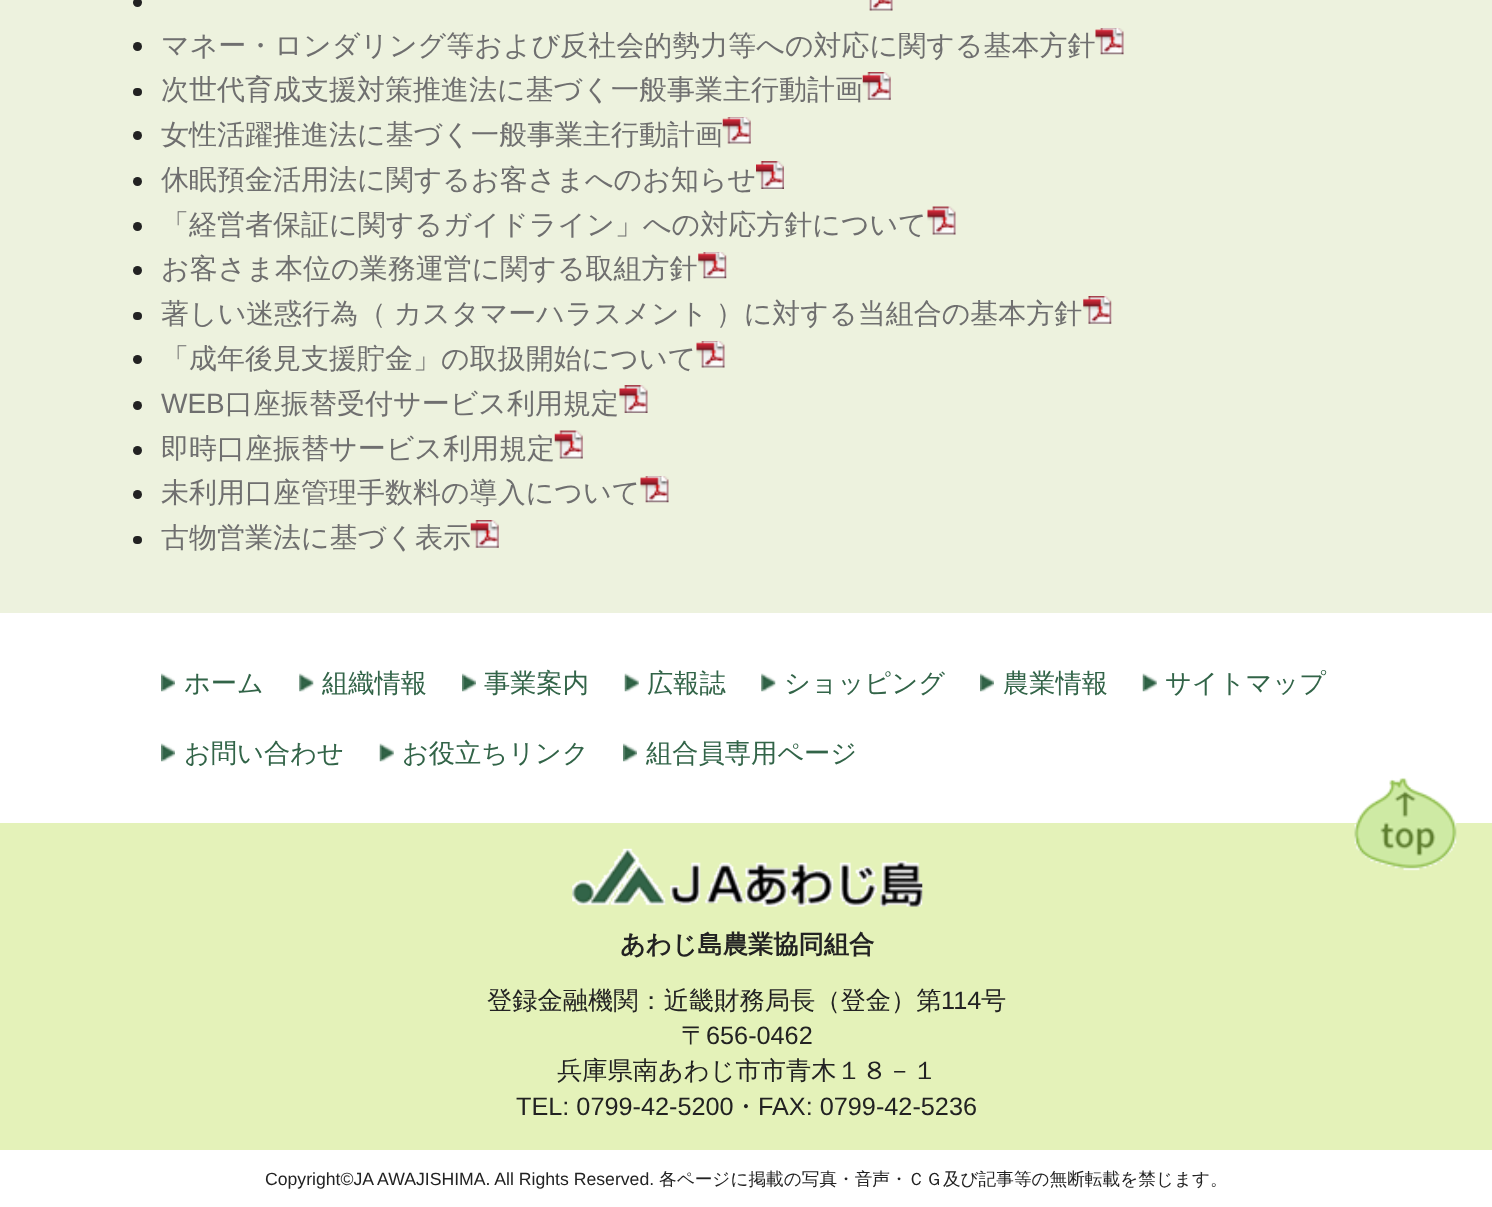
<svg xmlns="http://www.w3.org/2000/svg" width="1492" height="1207">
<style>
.a{font:500 28px WenQuanYi Zen Hei;fill:#6f6f6f}
.b{font:28px Liberation Sans;fill:#6f6f6f}
.c{font:500 26.25px WenQuanYi Zen Hei;fill:#326448}
.d{font:bold 25.25px WenQuanYi Zen Hei;fill:#222}
.e{font:500 25.25px WenQuanYi Zen Hei;fill:#222}
.f{font:25.25px Liberation Sans;fill:#222}
.g{font:17.65px Liberation Sans;fill:#222}
.h{font:500 17.65px WenQuanYi Zen Hei;fill:#222}
</style>
<rect width="100%" height="100%" fill="#fff"/>
<path fill="#edf2de" d="M0 0h1492v613H0z"/>
<circle fill="#222" cx="137.5" cy="2.5" r="4.5"/>
<image href="1.png" x="869" y="0" width="24" height="11"/>
<circle fill="#222" cx="137.5" cy="46.5" r="4.5"/>
<image href="2.png" x="1095" y="28" width="29" height="27"/>
<rect fill="#222" x="133" y="88" width="9" height="8" rx="4"/>
<image href="3.png" x="862" y="72" width="29" height="28"/>
<circle fill="#222" cx="137.5" cy="135.5" r="4.5"/>
<image href="4.png" x="722" y="117" width="29" height="27"/>
<circle fill="#222" cx="137.5" cy="181.5" r="4.5"/>
<image href="5.png" x="756" y="161" width="28" height="28"/>
<circle fill="#222" cx="137.5" cy="226.5" r="4.5"/>
<image href="6.png" x="927" y="206" width="29" height="29"/>
<circle fill="#222" cx="137.5" cy="270.5" r="4.5"/>
<image href="7.png" x="698" y="252" width="29" height="27"/>
<rect fill="#222" x="133" y="312" width="9" height="8" rx="4"/>
<image href="8.png" x="1083" y="296" width="29" height="28"/>
<circle fill="#222" cx="137.5" cy="359.5" r="4.5"/>
<image href="9.png" x="696" y="341" width="29" height="27"/>
<circle fill="#222" cx="137.5" cy="405.5" r="4.5"/>
<image href="10.png" x="619" y="385" width="29" height="28"/>
<circle fill="#222" cx="137.5" cy="450.5" r="4.5"/>
<image href="11.png" x="554" y="430" width="29" height="29"/>
<circle fill="#222" cx="137.5" cy="494.5" r="4.5"/>
<image href="2.png" x="640" y="476" width="29" height="27"/>
<rect fill="#222" x="133" y="536" width="9" height="8" rx="4"/>
<image href="3.png" x="470" y="520" width="29" height="28"/>
<image href="12.png" x="161" y="673" width="14" height="19"/>
<image href="13.png" x="299" y="673" width="15" height="19"/>
<image href="12.png" x="462" y="673" width="14" height="19"/>
<image href="14.png" x="624" y="673" width="15" height="19"/>
<image href="13.png" x="761" y="673" width="15" height="19"/>
<image href="12.png" x="980" y="673" width="14" height="19"/>
<image href="14.png" x="1142" y="673" width="15" height="19"/>
<image href="12.png" x="161" y="743" width="14" height="19"/>
<image href="14.png" x="379" y="743" width="15" height="19"/>
<image href="12.png" x="623" y="743" width="14" height="19"/>
<path fill="#e4f2b9" d="M0 823h1492v327H0z"/>
<image href="15.png" x="1354" y="777" width="103" height="94"/>
<image href="16.png" x="572" y="848" width="351" height="59"/>
<text class="a" x="161" y="55">マネー・ロンダリング等および反社会的勢力等への対応に関する基本方針</text>
<text class="a" x="161" y="99">次世代育成支援対策推進法に基づく一般事業主行動計画</text>
<text class="a" x="161" y="144">女性活躍推進法に基づく一般事業主行動計画</text>
<text class="a" x="161" y="189">休眠預金活用法に関するお客さまへのお知らせ</text>
<text class="a" x="161" y="234">「経営者保証に関するガイドライン」への対応方針について</text>
<text class="a" x="161" y="278">お客さま本位の業務運営に関する取組方針</text>
<text class="a" x="161" y="323" word-spacing="-1">著しい迷惑行為（ カスタマーハラスメント ）に対する当組合の基本方針</text>
<text class="a" x="161" y="368">「成年後見支援貯金」の取扱開始について</text>
<text class="b" x="161" y="413">WEB</text>
<text class="a" x="225" y="413">口座振替受付サービス利用規定</text>
<text class="a" x="161" y="458">即時口座振替サービス利用規定</text>
<text class="a" x="161" y="502">未利用口座管理手数料の導入について</text>
<text class="a" x="161" y="547">古物営業法に基づく表示</text>
<text class="c" x="184" y="692">ホーム</text>
<text class="c" x="322" y="692">組織情報</text>
<text class="c" x="484" y="692">事業案内</text>
<text class="c" x="647" y="692">広報誌</text>
<text class="c" x="784" y="692">ショッピング</text>
<text class="c" x="1003" y="692">農業情報</text>
<text class="c" x="1165" y="692">サイトマップ</text>
<text class="c" x="184" y="762">お問い合わせ</text>
<text class="c" x="402" y="762">お役立ちリンク</text>
<text class="c" x="646" y="762">組合員専用ページ</text>
<text class="d" x="620" y="953">あわじ島農業協同組合</text>
<text class="e" x="487" y="1009">登録金融機関：近畿財務局長（登金）第</text>
<text class="f" x="941" y="1009">114</text>
<text class="e" x="981" y="1009">号</text>
<text class="e" x="681" y="1044">〒</text>
<text class="f" x="706" y="1044">656-0462</text>
<text class="e" x="557" y="1079">兵庫県南あわじ市市青木１８－１</text>
<text class="f" x="516" y="1115">TEL: 0799-42-5200</text>
<text class="e" x="733" y="1115">・</text>
<text class="f" x="758" y="1115">FAX: 0799-42-5236</text>
<text class="g" x="265" y="1185">Copyright©JA AWAJISHIMA. All Rights Reserved.</text>
<text class="h" x="659" y="1185">各ページに掲載の写真・音声・ＣＧ及び記事等の無断転載を禁じます。</text>
</svg>
